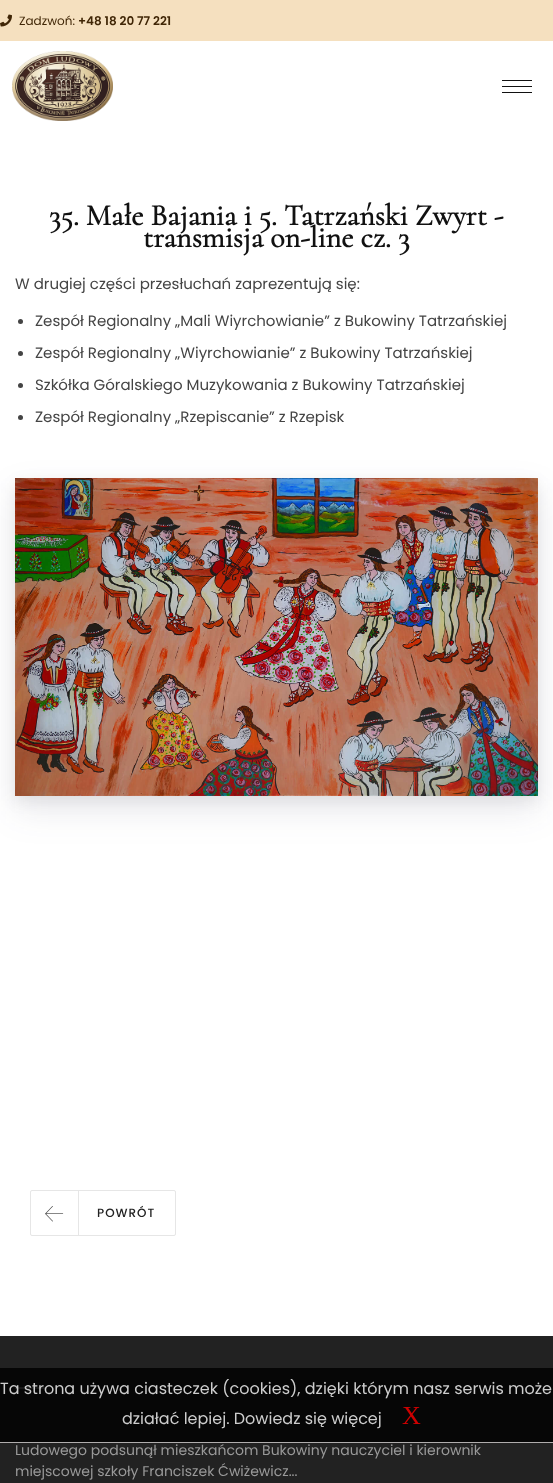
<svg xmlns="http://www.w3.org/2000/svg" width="553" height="1483">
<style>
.a{font:12px Poppins;fill:#402606}
.b{font:600 12px Poppins;fill:#402606}
.c{font:bold 30px Cormorant;fill:#111}
.d{font:15px Poppins;fill:#444}
.e{font:500 12px Poppins;letter-spacing:1px;fill:#222}
.f{font:16px Poppins;fill:#cdcdcd}
.g{font:26px Liberation Serif;fill:#cd0101}
.h{font:14px Poppins;fill:#999}
</style>
<rect width="100%" height="100%" fill="#fff"/>
<path fill="#f5e0bf" d="M0 0h553v41H0z"/>
<image href="1.png" x="0" y="14" width="12" height="13"/>
<image href="2.png" x="12" y="51" width="101" height="70"/>
<path fill="#111" d="M502 80h30v1H502z"/>
<path fill="#111" d="M502 86h30v1H502z"/>
<path fill="#111" d="M502 92h30v1H502z"/>
<circle fill="#444" cx="20.5" cy="321.5" r="2.5"/>
<circle fill="#444" cx="20.5" cy="353.5" r="2.5"/>
<circle fill="#444" cx="20.5" cy="385.5" r="2.5"/>
<circle fill="#444" cx="20.5" cy="417.5" r="2.5"/>
<path fill="#00000012" filter="blur(7.5px)" d="M15 483h523v318H15z"/>
<path fill="#32325d1a" filter="blur(17.5px)" d="M15 493h523v318H15z"/>
<image href="3.png" x="15" y="478" width="523" height="318"/>
<rect fill="none" stroke="#e6e6e6" x="30.5" y="1190.5" width="145" height="45" rx="1.5"/>
<path fill="#e6e6e6" d="M78 1191h1v44H78z"/>
<image href="4.png" x="45" y="1206" width="19" height="16"/>
<path fill="#222" d="M0 1336h553v147H0z"/>
<path fill="#7e7e7e" d="M15 1387h32v2H15z"/>
<path fill="#000000cc" d="M0 1368h553v74H0z"/>
<path fill="#b0adad" d="M0 1442h553v1H0z"/>
<text class="a" x="19" y="25">Zadzwoń:</text>
<text class="b" x="78" y="25">+48 18 20 77 221</text>
<text class="c" x="49" y="225">35. Małe Bajania i 5. Tatrzański Zwyrt -</text>
<text class="c" x="143" y="247">transmisja on-line cz. 3</text>
<text class="d" x="15" y="289">W drugiej części przesłuchań zaprezentują się:</text>
<text class="d" x="35" y="326">Zespół Regionalny „Mali Wiyrchowianie” z Bukowiny Tatrzańskiej</text>
<text class="d" x="35" y="358">Zespół Regionalny „Wiyrchowianie” z Bukowiny Tatrzańskiej</text>
<text class="d" x="35" y="390">Szkółka Góralskiego Muzykowania z Bukowiny Tatrzańskiej</text>
<text class="d" x="35" y="422">Zespół Regionalny „Rzepiscanie” z Rzepisk</text>
<text class="e" x="97" y="1217">POWRÓT</text>
<text class="f" x="0" y="1394">Ta strona używa ciasteczek (cookies), dzięki którym nasz serwis może</text>
<text class="f" x="122" y="1424">działać lepiej. Dowiedz się więcej</text>
<text class="g" x="402" y="1424">X</text>
<text class="h" x="15" y="1455">Ludowego podsunął mieszkańcom Bukowiny nauczyciel i kierownik</text>
<text class="h" x="15" y="1476">miejscowej szkoły Franciszek Ćwiżewicz...</text>
</svg>
